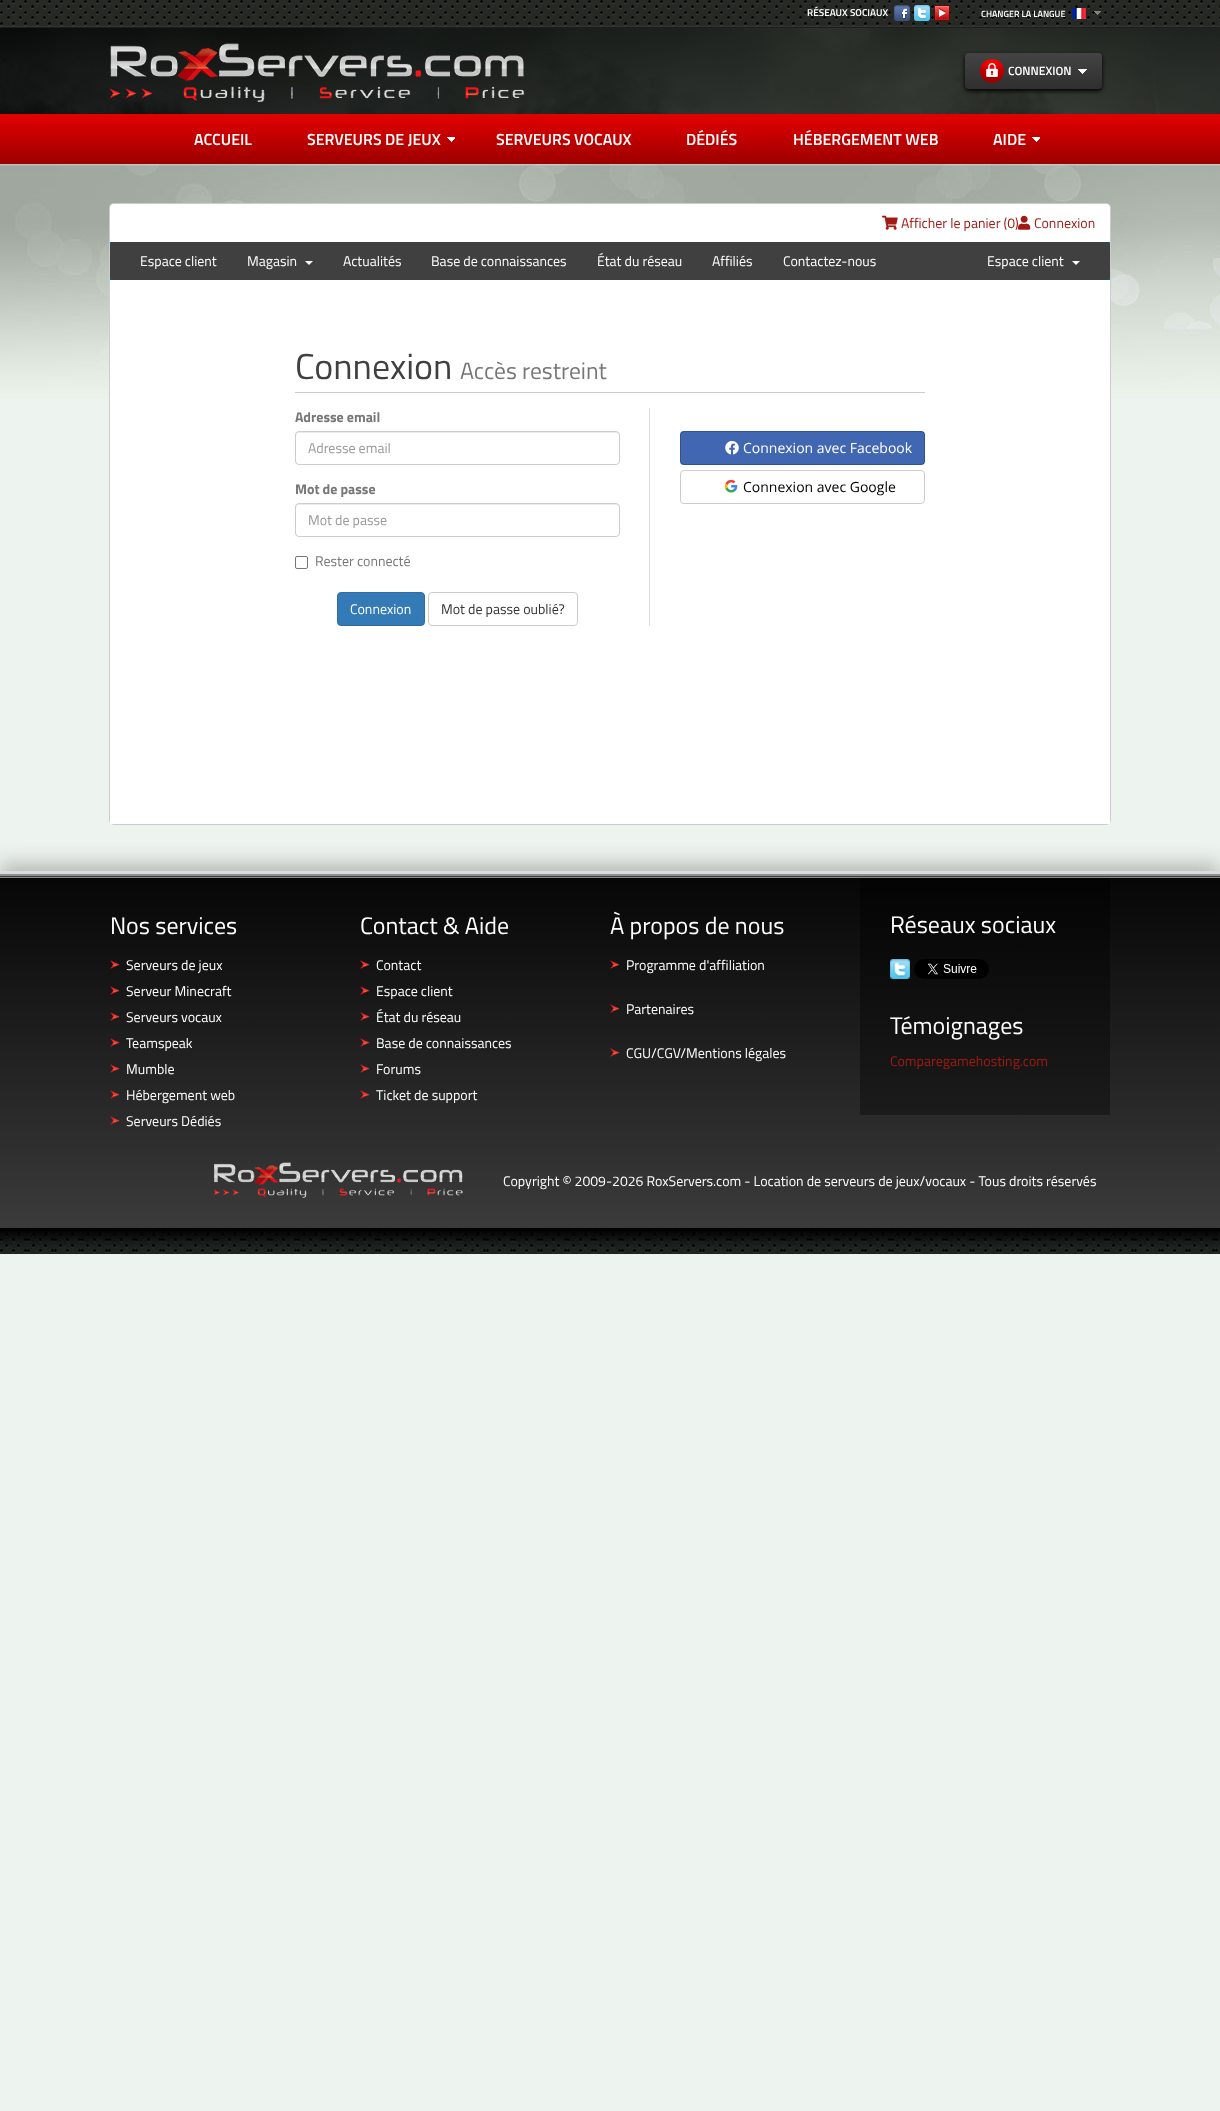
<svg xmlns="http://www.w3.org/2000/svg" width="1220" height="2111">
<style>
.a{font:600 10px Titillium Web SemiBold;fill:#fff}
.b{font:600 9px Titillium Web SemiBold;fill:#fff}
.c{font:600 12px Titillium Web SemiBold;fill:#fff}
.d{font:600 16px Titillium Web SemiBold;fill:#fff}
.e{font:14px Titillium Web;fill:#a11a13}
.f{font:14px Titillium Web;fill:#fff}
.g{font:36px Titillium Web;fill:#404040}
.h{font:23.5px Titillium Web;fill:#777}
.i{font:bold 14px Titillium Web;fill:#777}
.j{font:14px Titillium Web;fill:#999}
.k{font:14px Titillium Web;fill:#777}
.l{font:14px Titillium Web;fill:#333}
.m{font:14px Open Sans;fill:#fff}
.n{font:14px Open Sans;fill:#000}
.o{font:24px Titillium Web;fill:#fff}
</style>
<defs>
<linearGradient id="g1" gradientUnits="userSpaceOnUse" x1="1034" y1="53" x2="1034" y2="89"><stop offset="0" stop-color="#444"/><stop offset="1" stop-color="#2f2f2f"/></linearGradient>
<linearGradient id="g2" gradientUnits="userSpaceOnUse" x1="610" y1="114" x2="610" y2="164"><stop offset="0" stop-color="#e40000"/><stop offset="1" stop-color="#9c0000"/></linearGradient>
<linearGradient id="g3" gradientUnits="userSpaceOnUse" x1="610" y1="876" x2="610" y2="1228"><stop offset="0" stop-color="#060606"/><stop offset="1" stop-color="#3a3b3a"/></linearGradient>
<linearGradient id="g4" gradientUnits="userSpaceOnUse" x1="985" y1="878" x2="985" y2="1115"><stop offset="0" stop-color="#030303"/><stop offset="1" stop-color="#1a1b1a"/></linearGradient>
</defs>
<rect width="100%" height="100%" fill="#edf3ee"/>
<image href="1.png" x="0" y="0" width="1220" height="26"/>
<image href="2.png" x="894" y="5" width="16" height="16"/>
<image href="3.png" x="914" y="5" width="16" height="16"/>
<image href="4.png" x="934" y="5" width="16" height="16"/>
<image href="5.png" x="1072" y="8" width="14" height="11"/>
<image href="6.png" x="1094" y="11" width="7" height="4"/>
<image href="7.png" x="0" y="28" width="1220" height="86"/>
<path fill="#1c1d1b" d="M0 27h1220v1H0z"/>
<path fill="#333433" d="M0 26h1220v1H0z"/>
<image href="8.png" x="110" y="43" width="414" height="60"/>
<rect fill="#000" filter="blur(2px)" x="965" y="55" width="137" height="36" rx="4"/>
<rect fill="url(#g1)" x="965" y="53" width="137" height="36" rx="4"/>
<image href="9.png" x="980" y="59" width="24" height="24"/>
<image href="10.png" x="1078" y="69" width="9" height="5"/>
<path fill="url(#g2)" d="M0 114h1220v50H0z"/>
<image href="11.png" x="447" y="137" width="8" height="5"/>
<image href="11.png" x="1032" y="137" width="8" height="5"/>
<image href="12.png" x="0" y="164" width="1220" height="235"/>
<rect fill="#ccc" filter="blur(0.5px)" x="109" y="203" width="1002" height="622" rx="5"/>
<rect fill="#fff" x="110" y="204" width="1000" height="620" rx="4"/>
<path fill="#fff" d="M115 204h990c3 0 5 2 5 5v33h-1000v-33c0-3 2-5 5-5z"/>
<image href="13.png" x="882" y="215" width="16" height="15"/>
<image href="14.png" x="1018" y="215" width="13" height="15"/>
<path fill="#006687" d="M110 242h1000v38H110z"/>
<rect fill="#404040" x="110" y="242" width="1000" height="38" rx="4"/>
<path fill="#fff" d="M305 261h8l-4 4z"/>
<path fill="#fff" d="M1072 261h8l-4 4z"/>
<path fill="#fff" d="M110 820h1000v4H110z"/>
<path fill="#ccc" d="M295 392h630v1H295z"/>
<path fill="#ddd" d="M649 408h1v218H649z"/>
<path fill="#ececec" d="M299 433h317c2 0 3 1 3 3c0-2-1-4-3-4h-317c-2 0-3 2-3 4c0-2 1-3 3-3z"/>
<rect fill="none" stroke="#ccc" x="295.5" y="431.5" width="324" height="33" rx="3.5"/>
<path fill="#ececec" d="M299 505h317c2 0 3 1 3 3c0-2-1-4-3-4h-317c-2 0-3 2-3 4c0-2 1-3 3-3z"/>
<rect fill="none" stroke="#ccc" x="295.5" y="503.5" width="324" height="33" rx="3.5"/>
<rect fill="none" stroke="#767676" x="295.5" y="556.5" width="12" height="12" rx="1.5"/>
<rect fill="#337ab7" stroke="#2e6da4" x="337.5" y="592.5" width="87" height="33" rx="3.5"/>
<rect fill="none" stroke="#ccc" x="428.5" y="592.5" width="149" height="33" rx="3.5"/>
<rect fill="#4267b2" x="680" y="431" width="245" height="34" rx="4"/>
<rect fill="none" stroke="#00000033" x="680.5" y="431.5" width="244" height="33" rx="3.5"/>
<image href="15.png" x="725" y="441" width="14" height="14"/>
<rect fill="none" stroke="#ccc" x="680.5" y="470.5" width="244" height="33" rx="3.5"/>
<image href="16.png" x="724" y="479" width="14" height="14"/>
<path fill="#b2b6b2" filter="blur(10px)" d="M0 864h1220v354H0z"/>
<path fill="#d9dcda" d="M0 871h1220v3H0z"/>
<path fill="url(#g3)" d="M0 878h1220v350H0z"/>
<path fill="#888a8a" d="M0 877h1220v1H0z"/>
<path fill="#3c3d3d" d="M0 876h1220v1H0z"/>
<path fill="#8c8f8d" d="M0 874h1220v2H0z"/>
<image href="17.png" x="110" y="960" width="10" height="9"/>
<image href="18.png" x="110" y="986" width="10" height="9"/>
<image href="19.png" x="110" y="1012" width="10" height="9"/>
<image href="20.png" x="110" y="1038" width="10" height="9"/>
<image href="21.png" x="110" y="1064" width="10" height="9"/>
<image href="22.png" x="110" y="1090" width="10" height="9"/>
<image href="23.png" x="110" y="1116" width="10" height="9"/>
<image href="17.png" x="360" y="960" width="10" height="9"/>
<image href="18.png" x="360" y="986" width="10" height="9"/>
<image href="19.png" x="360" y="1012" width="10" height="9"/>
<image href="20.png" x="360" y="1038" width="10" height="9"/>
<image href="21.png" x="360" y="1064" width="10" height="9"/>
<image href="22.png" x="360" y="1090" width="10" height="9"/>
<image href="17.png" x="610" y="960" width="10" height="9"/>
<image href="24.png" x="610" y="1004" width="10" height="9"/>
<image href="25.png" x="610" y="1048" width="10" height="9"/>
<path fill="url(#g4)" d="M860 878h250v237H860z"/>
<image href="26.png" x="890" y="959" width="20" height="20"/>
<image href="27.png" x="914" y="959" width="75" height="20"/>
<image href="28.png" x="214" y="1162" width="249" height="36"/>
<image href="29.png" x="0" y="1228" width="1220" height="26"/>
<text class="a" x="807" y="16">RÉSEAUX SOCIAUX</text>
<text class="b" x="981" y="17">CHANGER LA LANGUE</text>
<text class="c" x="1008" y="75">CONNEXION</text>
<text class="d" x="194" y="145">ACCUEIL</text>
<text class="d" x="307" y="145">SERVEURS DE JEUX</text>
<text class="d" x="496" y="145">SERVEURS VOCAUX</text>
<text class="d" x="686" y="145">DÉDIÉS</text>
<text class="d" x="793" y="145">HÉBERGEMENT WEB</text>
<text class="d" x="993" y="145">AIDE</text>
<text class="e" x="901" y="228">Afficher le panier (0)</text>
<text class="e" x="1034" y="228">Connexion</text>
<text class="f" x="140" y="266">Espace client</text>
<text class="f" x="247" y="266">Magasin</text>
<text class="f" x="343" y="266">Actualités</text>
<text class="f" x="431" y="266">Base de connaissances</text>
<text class="f" x="597" y="266">État du réseau</text>
<text class="f" x="712" y="266">Affiliés</text>
<text class="f" x="783" y="266">Contactez-nous</text>
<text class="f" x="987" y="266">Espace client</text>
<text class="g" x="295" y="379">Connexion</text>
<text class="h" x="460" y="379">Accès restreint</text>
<text class="i" x="295" y="422">Adresse email</text>
<text class="j" x="308" y="453">Adresse email</text>
<text class="i" x="295" y="494">Mot de passe</text>
<text class="j" x="308" y="525">Mot de passe</text>
<text class="k" x="315" y="566">Rester connecté</text>
<text class="f" x="350" y="614">Connexion</text>
<text class="l" x="441" y="614">Mot de passe oublié?</text>
<text class="m" x="743" y="453">Connexion avec Facebook</text>
<text class="n" x="743" y="492">Connexion avec Google</text>
<text class="o" x="110" y="934">Nos services</text>
<text class="f" x="126" y="970">Serveurs de jeux</text>
<text class="f" x="126" y="996">Serveur Minecraft</text>
<text class="f" x="126" y="1022">Serveurs vocaux</text>
<text class="f" x="126" y="1048">Teamspeak</text>
<text class="f" x="126" y="1074">Mumble</text>
<text class="f" x="126" y="1100">Hébergement web</text>
<text class="f" x="126" y="1126">Serveurs Dédiés</text>
<text class="o" x="360" y="934">Contact &amp; Aide</text>
<text class="f" x="376" y="970">Contact</text>
<text class="f" x="376" y="996">Espace client</text>
<text class="f" x="376" y="1022">État du réseau</text>
<text class="f" x="376" y="1048">Base de connaissances</text>
<text class="f" x="376" y="1074">Forums</text>
<text class="f" x="376" y="1100">Ticket de support</text>
<text class="o" x="610" y="934">À propos de nous</text>
<text class="f" x="626" y="970">Programme d'affiliation</text>
<text class="f" x="626" y="1014">Partenaires</text>
<text class="f" x="626" y="1058">CGU/CGV/Mentions légales</text>
<text class="o" x="890" y="933">Réseaux sociaux</text>
<text class="o" x="890" y="1034">Témoignages</text>
<text class="e" x="890" y="1066">Comparegamehosting.com</text>
<text class="f" x="503" y="1186">Copyright © 2009-2026 RoxServers.com - Location de serveurs de jeux/vocaux - Tous droits réservés</text>
</svg>
